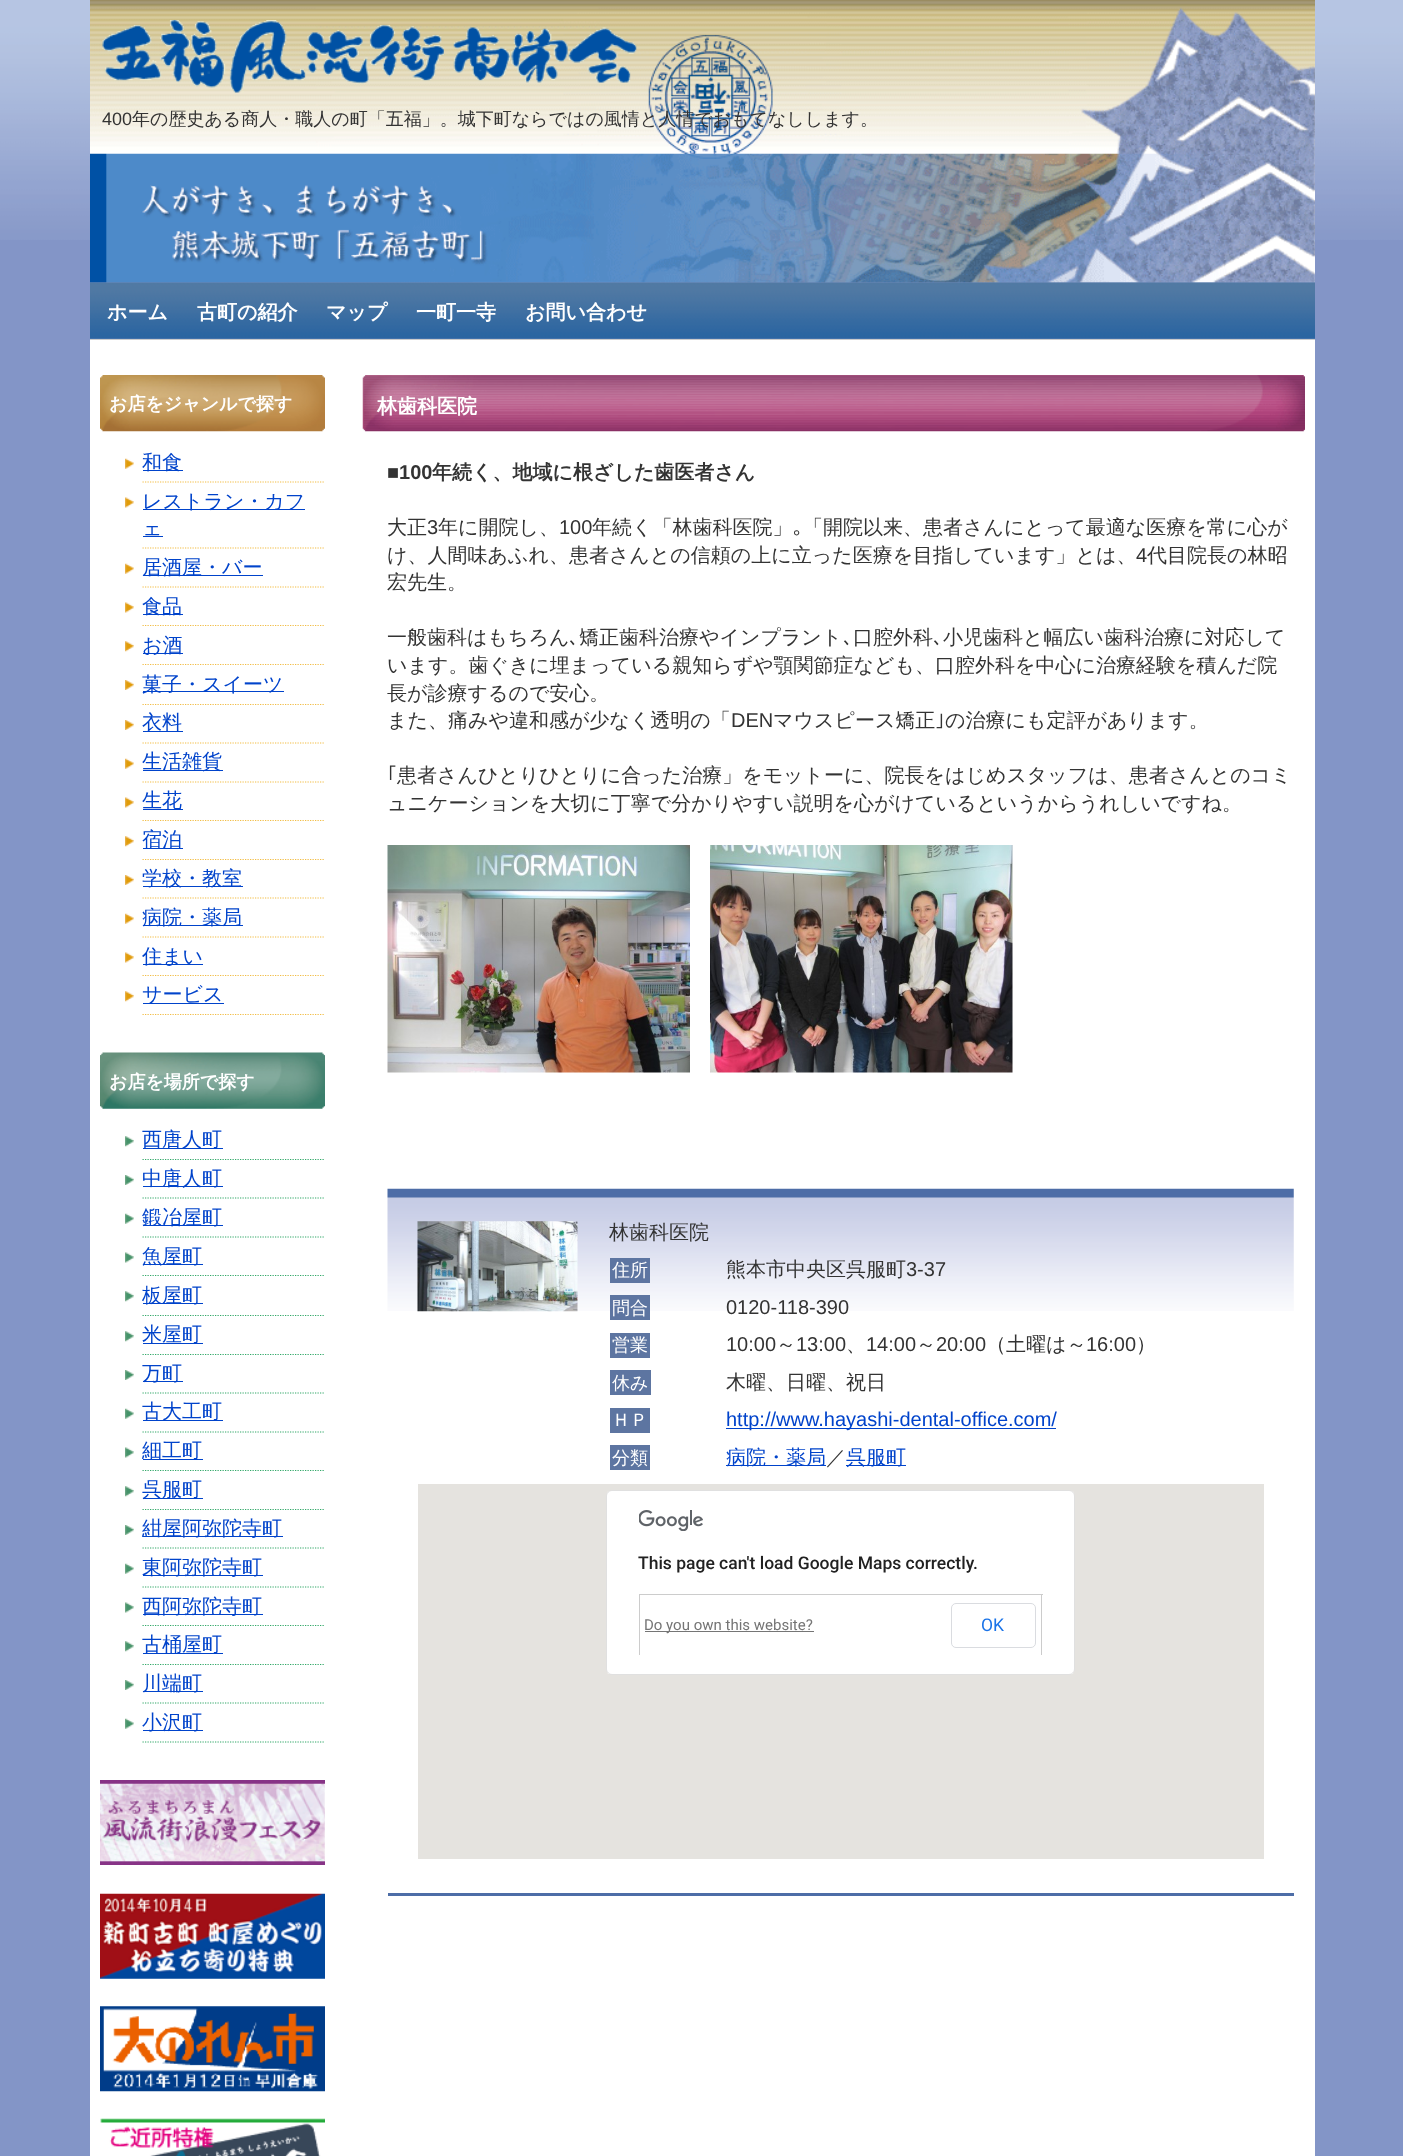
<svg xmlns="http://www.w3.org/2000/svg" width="1403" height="2156">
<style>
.a{font:18px Liberation Sans;fill:#333}
.b{font:500 18px WenQuanYi Zen Hei;fill:#333}
.c{font:bold 20px WenQuanYi Zen Hei;fill:#fff}
.d{font:bold 18px WenQuanYi Zen Hei;fill:#fff}
.e{font:500 20px WenQuanYi Zen Hei;fill:#0043cb}
.f{font:bold 20px Liberation Sans;fill:#333}
.g{font:bold 20px WenQuanYi Zen Hei;fill:#333}
.h{font:500 20px WenQuanYi Zen Hei;fill:#333}
.i{font:20px Liberation Sans;fill:#333}
.j{font:20px IPAPGothic;fill:#333}
.k{font:500 18px WenQuanYi Zen Hei;fill:#fff}
.l{font:20px Liberation Sans;fill:#0043cb}
.m{font:500 17.5px Roboto;fill:#212121}
.n{font:15px Roboto;fill:#757575}
.o{font:17.5px Roboto;fill:#1a73e8}
</style>
<rect width="100%" height="100%" fill="#8395c7"/>
<image href="1.png" x="0" y="0" width="1403" height="240"/>
<image href="2.png" x="90" y="0" width="1225" height="283"/>
<image href="3.png" x="102" y="20" width="535" height="73"/>
<image href="4.png" x="90" y="282" width="1225" height="57"/>
<path fill="#ccc" d="M90 339h1225v1H90z"/>
<path fill="#fff" d="M90 340h1225v1816H90z"/>
<image href="5.png" x="100" y="375" width="225" height="57"/>
<path fill="none" stroke="#f2bd45" stroke-width="1.2" stroke-dasharray="1.25 1.25" d="M142.5 482h182.5"/>
<image href="6.png" x="125" y="458" width="9" height="11"/>
<path fill="#0043cb" d="M143 470h40v1H143z"/>
<path fill="none" stroke="#f2bd45" stroke-width="1.2" stroke-dasharray="1.25 1.25" d="M142.5 548h182.5"/>
<image href="7.png" x="125" y="497" width="9" height="11"/>
<path fill="#0043cb" d="M143 509h162v1H143z"/>
<path fill="#0043cb" d="M143 536h20v1H143z"/>
<path fill="none" stroke="#f2bd45" stroke-width="1.2" stroke-dasharray="1.25 1.25" d="M142.5 587h182.5"/>
<image href="6.png" x="125" y="563" width="9" height="11"/>
<path fill="#0043cb" d="M143 575h120v1H143z"/>
<path fill="none" stroke="#f2bd45" stroke-width="1.2" stroke-dasharray="1.25 1.25" d="M142.5 625.5h182.5"/>
<image href="7.png" x="125" y="602" width="9" height="11"/>
<path fill="#0043cb" d="M143 614h40v1H143z"/>
<path fill="none" stroke="#f2bd45" stroke-width="1.2" stroke-dasharray="1.25 1.25" d="M142.5 664.5h182.5"/>
<image href="8.png" x="125" y="641" width="9" height="11"/>
<path fill="#0043cb" d="M143 653h40v1H143z"/>
<path fill="none" stroke="#f2bd45" stroke-width="1.2" stroke-dasharray="1.25 1.25" d="M142.5 704.5h182.5"/>
<image href="9.png" x="125" y="680" width="9" height="10"/>
<path fill="#0043cb" d="M143 691h141v1H143z"/>
<path fill="none" stroke="#f2bd45" stroke-width="1.2" stroke-dasharray="1.25 1.25" d="M142.5 743h182.5"/>
<image href="9.png" x="125" y="720" width="9" height="10"/>
<path fill="#0043cb" d="M143 731h40v1H143z"/>
<path fill="none" stroke="#f2bd45" stroke-width="1.2" stroke-dasharray="1.25 1.25" d="M142.5 782h182.5"/>
<image href="6.png" x="125" y="758" width="9" height="11"/>
<path fill="#0043cb" d="M143 770h80v1H143z"/>
<path fill="none" stroke="#f2bd45" stroke-width="1.2" stroke-dasharray="1.25 1.25" d="M142.5 820.5h182.5"/>
<image href="7.png" x="125" y="797" width="9" height="11"/>
<path fill="#0043cb" d="M143 809h40v1H143z"/>
<path fill="none" stroke="#f2bd45" stroke-width="1.2" stroke-dasharray="1.25 1.25" d="M142.5 859.5h182.5"/>
<image href="8.png" x="125" y="836" width="9" height="11"/>
<path fill="#0043cb" d="M143 848h40v1H143z"/>
<path fill="none" stroke="#f2bd45" stroke-width="1.2" stroke-dasharray="1.25 1.25" d="M142.5 898h182.5"/>
<image href="9.png" x="125" y="875" width="9" height="10"/>
<path fill="#0043cb" d="M143 886h100v1H143z"/>
<path fill="none" stroke="#f2bd45" stroke-width="1.2" stroke-dasharray="1.25 1.25" d="M142.5 937h182.5"/>
<image href="6.png" x="125" y="913" width="9" height="11"/>
<path fill="#0043cb" d="M143 925h100v1H143z"/>
<path fill="none" stroke="#f2bd45" stroke-width="1.2" stroke-dasharray="1.25 1.25" d="M142.5 975.5h182.5"/>
<image href="7.png" x="125" y="952" width="9" height="11"/>
<path fill="#0043cb" d="M143 964h60v1H143z"/>
<path fill="none" stroke="#f2bd45" stroke-width="1.2" stroke-dasharray="1.25 1.25" d="M142.5 1014.5h182.5"/>
<image href="8.png" x="125" y="991" width="9" height="11"/>
<path fill="#0043cb" d="M143 1003h81v1H143z"/>
<image href="10.png" x="100" y="1052" width="225" height="57"/>
<path fill="none" stroke="#32a868" stroke-width="1.2" stroke-dasharray="1.25 1.25" d="M142.5 1159.5h182.5"/>
<image href="11.png" x="125" y="1136" width="9" height="11"/>
<path fill="#0043cb" d="M143 1148h80v1H143z"/>
<path fill="none" stroke="#32a868" stroke-width="1.2" stroke-dasharray="1.25 1.25" d="M142.5 1198h182.5"/>
<image href="12.png" x="125" y="1175" width="9" height="10"/>
<path fill="#0043cb" d="M143 1186h80v1H143z"/>
<path fill="none" stroke="#32a868" stroke-width="1.2" stroke-dasharray="1.25 1.25" d="M142.5 1237h182.5"/>
<image href="13.png" x="125" y="1213" width="9" height="11"/>
<path fill="#0043cb" d="M143 1225h80v1H143z"/>
<path fill="none" stroke="#32a868" stroke-width="1.2" stroke-dasharray="1.25 1.25" d="M142.5 1275.5h182.5"/>
<image href="14.png" x="125" y="1252" width="9" height="11"/>
<path fill="#0043cb" d="M143 1264h60v1H143z"/>
<path fill="none" stroke="#32a868" stroke-width="1.2" stroke-dasharray="1.25 1.25" d="M142.5 1315.5h182.5"/>
<image href="11.png" x="125" y="1291" width="9" height="11"/>
<path fill="#0043cb" d="M143 1303h60v1H143z"/>
<path fill="none" stroke="#32a868" stroke-width="1.2" stroke-dasharray="1.25 1.25" d="M142.5 1354.5h182.5"/>
<image href="11.png" x="125" y="1331" width="9" height="11"/>
<path fill="#0043cb" d="M143 1343h60v1H143z"/>
<path fill="none" stroke="#32a868" stroke-width="1.2" stroke-dasharray="1.25 1.25" d="M142.5 1393h182.5"/>
<image href="15.png" x="125" y="1370" width="9" height="10"/>
<path fill="#0043cb" d="M143 1381h40v1H143z"/>
<path fill="none" stroke="#32a868" stroke-width="1.2" stroke-dasharray="1.25 1.25" d="M142.5 1432h182.5"/>
<image href="13.png" x="125" y="1408" width="9" height="11"/>
<path fill="#0043cb" d="M143 1420h80v1H143z"/>
<path fill="none" stroke="#32a868" stroke-width="1.2" stroke-dasharray="1.25 1.25" d="M142.5 1470.5h182.5"/>
<image href="14.png" x="125" y="1447" width="9" height="11"/>
<path fill="#0043cb" d="M143 1459h60v1H143z"/>
<path fill="none" stroke="#32a868" stroke-width="1.2" stroke-dasharray="1.25 1.25" d="M142.5 1509.5h182.5"/>
<image href="11.png" x="125" y="1486" width="9" height="11"/>
<path fill="#0043cb" d="M143 1498h60v1H143z"/>
<path fill="none" stroke="#32a868" stroke-width="1.2" stroke-dasharray="1.25 1.25" d="M142.5 1548h182.5"/>
<image href="15.png" x="125" y="1525" width="9" height="10"/>
<path fill="#0043cb" d="M143 1536h140v1H143z"/>
<path fill="none" stroke="#32a868" stroke-width="1.2" stroke-dasharray="1.25 1.25" d="M142.5 1587h182.5"/>
<image href="16.png" x="125" y="1563" width="9" height="11"/>
<path fill="#0043cb" d="M143 1575h120v1H143z"/>
<path fill="none" stroke="#32a868" stroke-width="1.2" stroke-dasharray="1.25 1.25" d="M142.5 1625.5h182.5"/>
<image href="14.png" x="125" y="1602" width="9" height="11"/>
<path fill="#0043cb" d="M143 1614h120v1H143z"/>
<path fill="none" stroke="#32a868" stroke-width="1.2" stroke-dasharray="1.25 1.25" d="M142.5 1664.5h182.5"/>
<image href="11.png" x="125" y="1641" width="9" height="11"/>
<path fill="#0043cb" d="M143 1653h80v1H143z"/>
<path fill="none" stroke="#32a868" stroke-width="1.2" stroke-dasharray="1.25 1.25" d="M142.5 1703h182.5"/>
<image href="15.png" x="125" y="1680" width="9" height="10"/>
<path fill="#0043cb" d="M143 1691h60v1H143z"/>
<path fill="none" stroke="#32a868" stroke-width="1.2" stroke-dasharray="1.25 1.25" d="M142.5 1742h182.5"/>
<image href="13.png" x="125" y="1718" width="9" height="11"/>
<path fill="#0043cb" d="M143 1730h60v1H143z"/>
<image href="17.png" x="100" y="1780" width="225" height="85"/>
<image href="18.png" x="100" y="1893" width="225" height="86"/>
<image href="19.png" x="100" y="2006" width="225" height="86"/>
<image href="20.png" x="100" y="2118" width="225" height="38"/>
<image href="21.png" x="362" y="375" width="943" height="57"/>
<image href="22.png" x="387" y="845" width="303" height="228"/>
<image href="23.png" x="710" y="845" width="303" height="228"/>
<image href="24.png" x="387" y="1188" width="907" height="123"/>
<path fill="#4d6da7" d="M388 1893h906v3H388z"/>
<image href="25.png" x="417" y="1221" width="161" height="91"/>
<path fill="#5d75a1" d="M610 1258h40v25H610z"/>
<path fill="#5d75a1" d="M610 1295h40v25H610z"/>
<path fill="#5d75a1" d="M610 1333h40v25H610z"/>
<path fill="#5d75a1" d="M610 1370h41v25H610z"/>
<path fill="#5d75a1" d="M610 1408h40v25H610z"/>
<path fill="#0043cb" d="M726 1428h330v1H726z"/>
<path fill="#5d75a1" d="M610 1445h40v25H610z"/>
<path fill="#0043cb" d="M726 1465h100v1H726z"/>
<path fill="#0043cb" d="M846 1465h60v1H846z"/>
<path fill="#e5e3df" d="M418 1484h846v375H418z"/>
<rect fill="#fff" x="606" y="1490" width="469" height="185" rx="6"/>
<rect fill="none" stroke="#0000001f" x="606.5" y="1490.5" width="468" height="184" rx="5.5"/>
<image href="26.png" x="639" y="1510" width="64" height="21"/>
<path fill="#ccc" d="M639 1594h404v1H639z"/>
<path fill="#ccc" d="M1041 1594h1v61H1041z"/>
<path fill="#ccc" d="M639 1594h1v61H639z"/>
<path fill="#757575" d="M645 1631h169v1H645z"/>
<rect fill="none" stroke="#dadce0" x="951.5" y="1603.5" width="84" height="44" rx="4.5"/>
<text class="a" x="102" y="125">400</text>
<text class="b" x="132" y="125">年の歴史ある商人・職人の町「五福」。城下町ならではの風情と人情でおもてなしします。</text>
<text class="c" x="107" y="319">ホーム</text>
<text class="c" x="197" y="319">古町の紹介</text>
<text class="c" x="326" y="319">マップ</text>
<text class="c" x="416" y="319">一町一寺</text>
<text class="c" x="525" y="319">お問い合わせ</text>
<text class="d" x="109" y="410">お店をジャンルで探す</text>
<text class="e" x="142" y="469">和食</text>
<text class="e" x="142" y="508">レストラン・カフ</text>
<text class="e" x="142" y="535">ェ</text>
<text class="e" x="142" y="574">居酒屋・バー</text>
<text class="e" x="142" y="613">食品</text>
<text class="e" x="142" y="652">お酒</text>
<text class="e" x="142" y="691">菓子・スイーツ</text>
<text class="e" x="142" y="729">衣料</text>
<text class="e" x="142" y="768">生活雑貨</text>
<text class="e" x="142" y="807">生花</text>
<text class="e" x="142" y="846">宿泊</text>
<text class="e" x="142" y="885">学校・教室</text>
<text class="e" x="142" y="924">病院・薬局</text>
<text class="e" x="142" y="963">住まい</text>
<text class="e" x="142" y="1001">サービス</text>
<text class="d" x="109" y="1088">お店を場所で探す</text>
<text class="e" x="142" y="1146">西唐人町</text>
<text class="e" x="142" y="1185">中唐人町</text>
<text class="e" x="142" y="1224">鍛冶屋町</text>
<text class="e" x="142" y="1263">魚屋町</text>
<text class="e" x="142" y="1302">板屋町</text>
<text class="e" x="142" y="1341">米屋町</text>
<text class="e" x="142" y="1380">万町</text>
<text class="e" x="142" y="1418">古大工町</text>
<text class="e" x="142" y="1457">細工町</text>
<text class="e" x="142" y="1496">呉服町</text>
<text class="e" x="142" y="1535">紺屋阿弥陀寺町</text>
<text class="e" x="142" y="1574">東阿弥陀寺町</text>
<text class="e" x="142" y="1613">西阿弥陀寺町</text>
<text class="e" x="142" y="1651">古桶屋町</text>
<text class="e" x="142" y="1690">川端町</text>
<text class="e" x="142" y="1729">小沢町</text>
<text class="c" x="377" y="413">林歯科医院</text>
<text class="f" x="387" y="479">■100</text>
<text class="g" x="432" y="479">年続く、地域に根ざした歯医者さん</text>
<text class="h" x="387" y="534">大正</text>
<text class="i" x="427" y="534">3</text>
<text class="h" x="438" y="534">年に開院し、</text>
<text class="i" x="559" y="534">100</text>
<text class="h" x="592" y="534">年続く「林歯科医院」</text>
<text class="j" x="793" y="534">｡</text>
<text class="h" x="803" y="534">「開院以来、患者さんにとって最適な医療を常に心が</text>
<text class="h" x="387" y="562">け、人間味あふれ、患者さんとの信頼の上に立った医療を目指しています」とは、</text>
<text class="i" x="1136" y="562">4</text>
<text class="h" x="1147" y="562">代目院長の林昭</text>
<text class="h" x="387" y="589">宏先生。</text>
<text class="h" x="387" y="644">一般歯科はもちろん</text>
<text class="j" x="569" y="644">､</text>
<text class="h" x="579" y="644">矯正歯科治療やインプラント</text>
<text class="j" x="843" y="644">､</text>
<text class="h" x="853" y="644">口腔外科</text>
<text class="j" x="933" y="644">､</text>
<text class="h" x="943" y="644">小児歯科と幅広い歯科治療に対応して</text>
<text class="h" x="387" y="672">います。歯ぐきに埋まっている親知らずや顎関節症なども、口腔外科を中心に治療経験を積んだ院</text>
<text class="h" x="387" y="700">長が診療するので安心。</text>
<text class="h" x="387" y="727">また、痛みや違和感が少なく透明の「</text>
<text class="i" x="731" y="727">DEN</text>
<text class="h" x="773" y="727">マウスピース矯正</text>
<text class="j" x="935" y="727">｣</text>
<text class="h" x="945" y="727">の治療にも定評があります。</text>
<text class="j" x="387" y="782">｢</text>
<text class="h" x="397" y="782">患者さんひとりひとりに合った治療」をモットーに、院長をはじめスタッフは、患者さんとのコミ</text>
<text class="h" x="387" y="810">ュニケーションを大切に丁寧で分かりやすい説明を心がけているというからうれしいですね。</text>
<text class="h" x="609" y="1239">林歯科医院</text>
<text class="k" x="612" y="1276">住所</text>
<text class="h" x="726" y="1276">熊本市中央区呉服町</text>
<text class="i" x="906" y="1276">3-37</text>
<text class="k" x="612" y="1314">問合</text>
<text class="i" x="726" y="1314">0120-118-390</text>
<text class="k" x="612" y="1351">営業</text>
<text class="i" x="726" y="1351">10:00</text>
<text class="h" x="776" y="1351">～</text>
<text class="i" x="796" y="1351">13:00</text>
<text class="i" x="866" y="1351">14:00</text>
<text class="h" x="916" y="1351">～</text>
<text class="i" x="936" y="1351">20:00</text>
<text class="h" x="986" y="1351">（土曜は～</text>
<text class="i" x="1086" y="1351">16:00</text>
<text class="h" x="1136" y="1351">）</text>
<text class="h" x="846" y="1351">、</text>
<text class="k" x="612" y="1389">休み</text>
<text class="h" x="726" y="1389">木曜、日曜、祝日</text>
<text class="k" x="612" y="1426">ＨＰ</text>
<text class="l" x="726" y="1426">http://www.hayashi-dental-office.com/</text>
<text class="k" x="612" y="1464">分類</text>
<text class="e" x="726" y="1464">病院・薬局</text>
<text class="h" x="826" y="1464">／</text>
<text class="e" x="846" y="1464">呉服町</text>
<text class="m" x="638" y="1569">This page can't load Google Maps correctly.</text>
<text class="n" x="644" y="1630">Do you own this website?</text>
<text class="o" x="981" y="1631">OK</text>
</svg>
